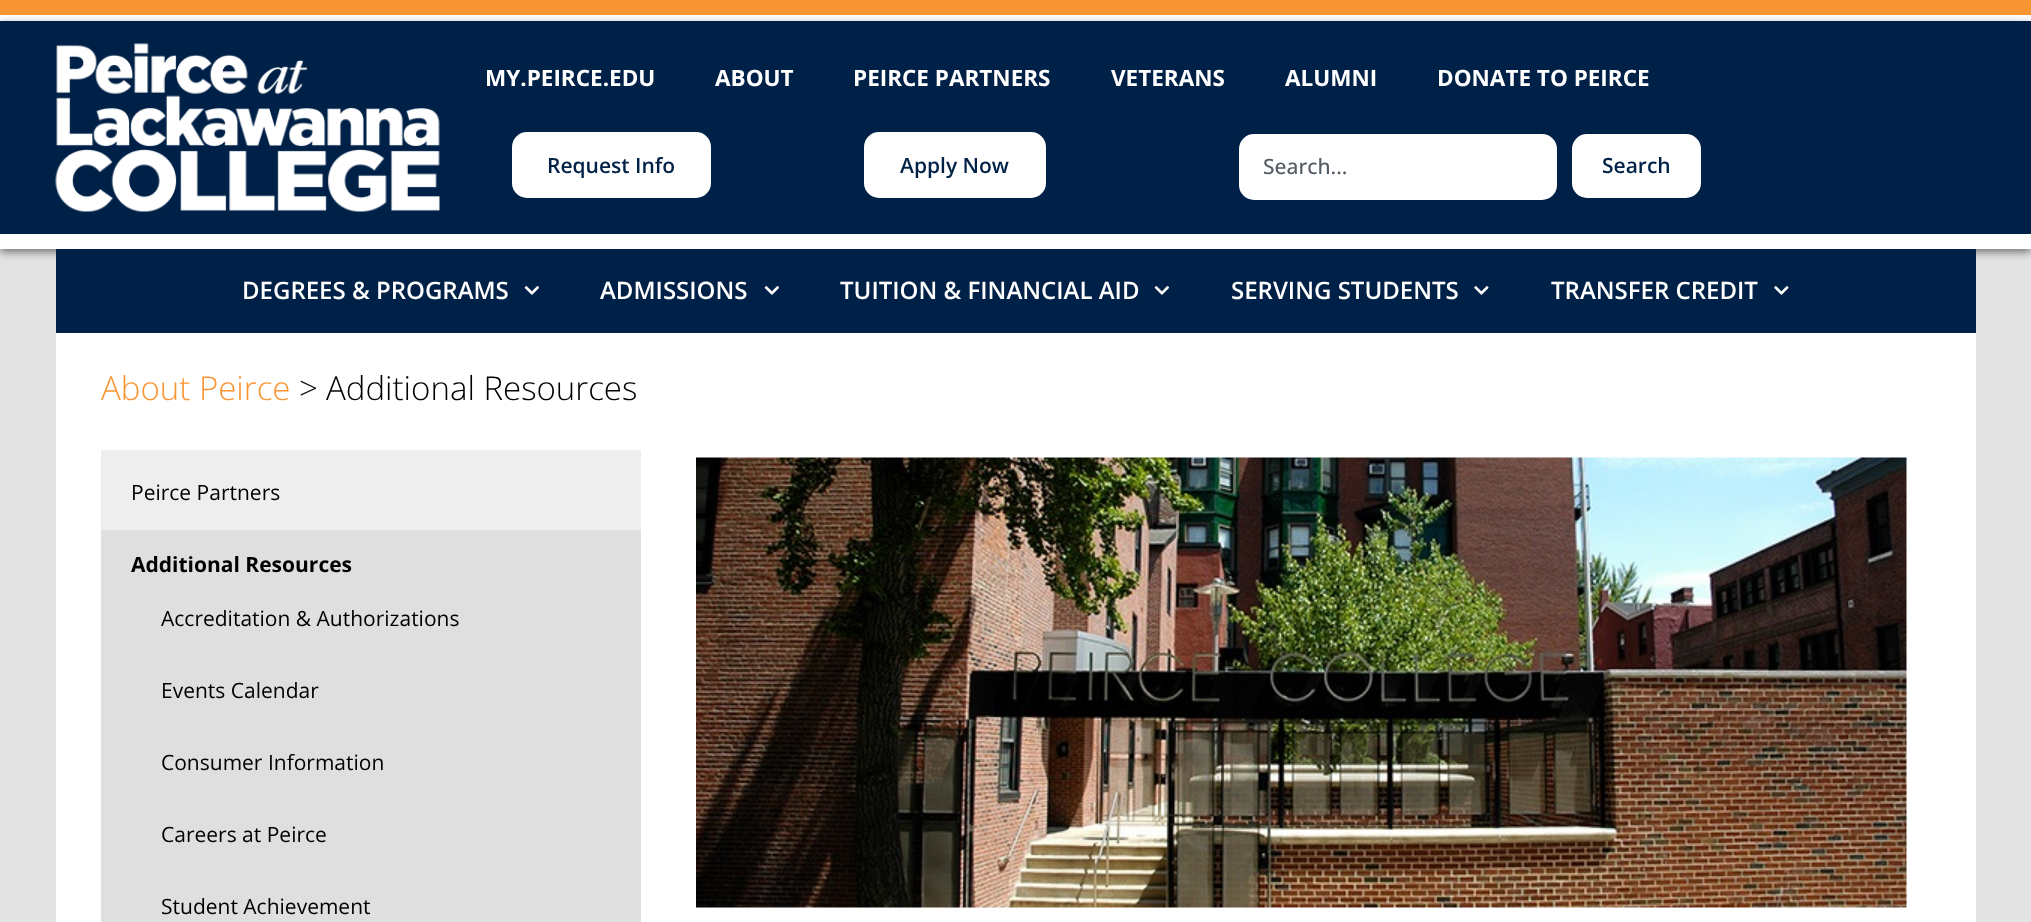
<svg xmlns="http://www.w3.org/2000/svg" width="2031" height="922">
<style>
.a{font:bold 22.5px Open Sans;fill:#fff}
.b{font:600 21px Open Sans;fill:#002147}
.c{font:500 21px Open Sans;fill:#515962}
.d{font:600 24px Open Sans;fill:#fff}
.e{font:300 33px Open Sans;fill:#f99633}
.f{font:300 33px Open Sans;fill:#101010}
.g{font:300 33px Open Sans;fill:#000}
.h{font:21px Open Sans;fill:#000}
.i{font:bold 21px Open Sans;fill:#000}
</style>
<rect width="100%" height="100%" fill="#e3e3e3"/>
<path fill="#f99633" d="M0 0h2031v15H0z"/>
<path fill="#fff" d="M0 15h2031v6H0z"/>
<path fill="#00000080" filter="blur(4px)" d="M0 24h2031v228H0z"/>
<path fill="#002147" d="M0 21h2031v213H0z"/>
<path fill="#fff" d="M0 234h2031v15H0z"/>
<image href="1.png" x="55" y="43" width="385" height="169"/>
<rect fill="#fff" x="512" y="132" width="199" height="66" rx="15"/>
<rect fill="#fff" x="864" y="132" width="182" height="66" rx="15"/>
<rect fill="#fff" x="1239" y="134" width="318" height="66" rx="15"/>
<rect fill="#fff" x="1572" y="134" width="129" height="64" rx="15"/>
<path fill="#002147" d="M56 249h1920v84H56z"/>
<image href="2.png" x="524" y="286" width="15" height="9"/>
<image href="2.png" x="764" y="286" width="15" height="9"/>
<image href="2.png" x="1154" y="286" width="15" height="9"/>
<image href="3.png" x="1474" y="286" width="15" height="9"/>
<image href="3.png" x="1774" y="286" width="15" height="9"/>
<path fill="#fff" d="M56 333h1920v589H56z"/>
<path fill="#eee" d="M101 450h540v80H101z"/>
<path fill="#dfdfdf" d="M101 530h540v392H101z"/>
<image href="4.png" x="696" y="457" width="1211" height="451"/>
<text class="a" x="485" y="86">MY.PEIRCE.EDU</text>
<text class="a" x="715" y="86">ABOUT</text>
<text class="a" x="853" y="86">PEIRCE PARTNERS</text>
<text class="a" x="1111" y="86">VETERANS</text>
<text class="a" x="1285" y="86">ALUMNI</text>
<text class="a" x="1437" y="86">DONATE TO PEIRCE</text>
<text class="b" x="547" y="173">Request Info</text>
<text class="b" x="900" y="173">Apply Now</text>
<text class="c" x="1263" y="174">Search...</text>
<text class="b" x="1602" y="173">Search</text>
<text class="d" x="242" y="299">DEGREES &amp; PROGRAMS</text>
<text class="d" x="600" y="299">ADMISSIONS</text>
<text class="d" x="840" y="299">TUITION &amp; FINANCIAL AID</text>
<text class="d" x="1231" y="299">SERVING STUDENTS</text>
<text class="d" x="1551" y="299">TRANSFER CREDIT</text>
<text class="e" x="101" y="400">About Peirce</text>
<text class="f" x="299" y="400">&gt;</text>
<text class="g" x="326" y="400">Additional Resources</text>
<text class="h" x="131" y="500">Peirce Partners</text>
<text class="i" x="131" y="572">Additional Resources</text>
<text class="h" x="161" y="626">Accreditation &amp; Authorizations</text>
<text class="h" x="161" y="698">Events Calendar</text>
<text class="h" x="161" y="770">Consumer Information</text>
<text class="h" x="161" y="842">Careers at Peirce</text>
<text class="h" x="161" y="914">Student Achievement</text>
</svg>
